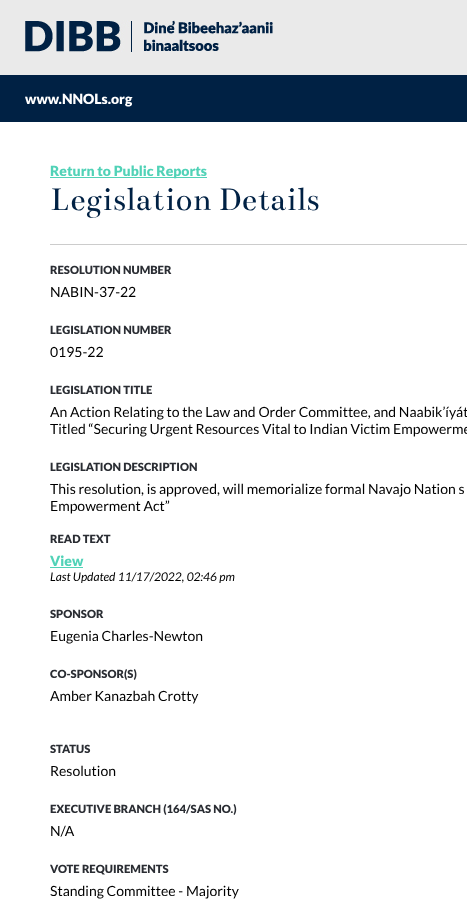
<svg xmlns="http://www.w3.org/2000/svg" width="467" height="913">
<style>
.a{font:900 14px Lato;fill:#fff}
.b{font:900 14px Lato;fill:#51d2b7}
.c{font:35px Bentham;fill:#002144}
.d{font:900 11.25px Lato;fill:#2a2d33}
.e{font:14px Lato;fill:#000}
.f{font:italic 12px Lato;fill:#000}
</style>
<rect width="100%" height="100%" fill="#eaeaea"/>
<image href="1.png" x="25" y="20" width="248" height="32"/>
<path fill="#002144" d="M0 75h467v47H0z"/>
<path fill="#fff" d="M0 122h467v791H0z"/>
<path fill="#51d2b7" d="M50 177h157v1H50z"/>
<path fill="#ccc" d="M50 244h417v1H50z"/>
<path fill="#51d2b7" d="M50 567h33v1H50z"/>
<text class="a" x="25" y="104">www.NNOLs.org</text>
<text class="b" x="50" y="176">Return to Public Reports</text>
<text class="c" x="50" y="210">Legislation Details</text>
<text class="d" x="50" y="274">RESOLUTION NUMBER</text>
<text class="e" x="50" y="297">NABIN-37-22</text>
<text class="d" x="50" y="334">LEGISLATION NUMBER</text>
<text class="e" x="50" y="357">0195-22</text>
<text class="d" x="50" y="394">LEGISLATION TITLE</text>
<text class="e" x="50" y="417">An Action Relating to the Law and Order Committee, and Naabik’íyát</text>
<text class="e" x="50" y="434">Titled “Securing Urgent Resources Vital to Indian Victim Empowerme</text>
<text class="d" x="50" y="471">LEGISLATION DESCRIPTION</text>
<text class="e" x="50" y="494">This resolution, is approved, will memorialize formal Navajo Nation s</text>
<text class="e" x="50" y="511">Empowerment Act”</text>
<text class="d" x="50" y="543">READ TEXT</text>
<text class="b" x="50" y="566">View</text>
<text class="f" x="50" y="581">Last Updated 11/17/2022, 02:46 pm</text>
<text class="d" x="50" y="618">SPONSOR</text>
<text class="e" x="50" y="641">Eugenia Charles-Newton</text>
<text class="d" x="50" y="678">CO-SPONSOR(S)</text>
<text class="e" x="50" y="701">Amber Kanazbah Crotty</text>
<text class="d" x="50" y="753">STATUS</text>
<text class="e" x="50" y="776">Resolution</text>
<text class="d" x="50" y="813">EXECUTIVE BRANCH (164/SAS NO.)</text>
<text class="e" x="50" y="836">N/A</text>
<text class="d" x="50" y="873">VOTE REQUIREMENTS</text>
<text class="e" x="50" y="896">Standing Committee - Majority</text>
</svg>
